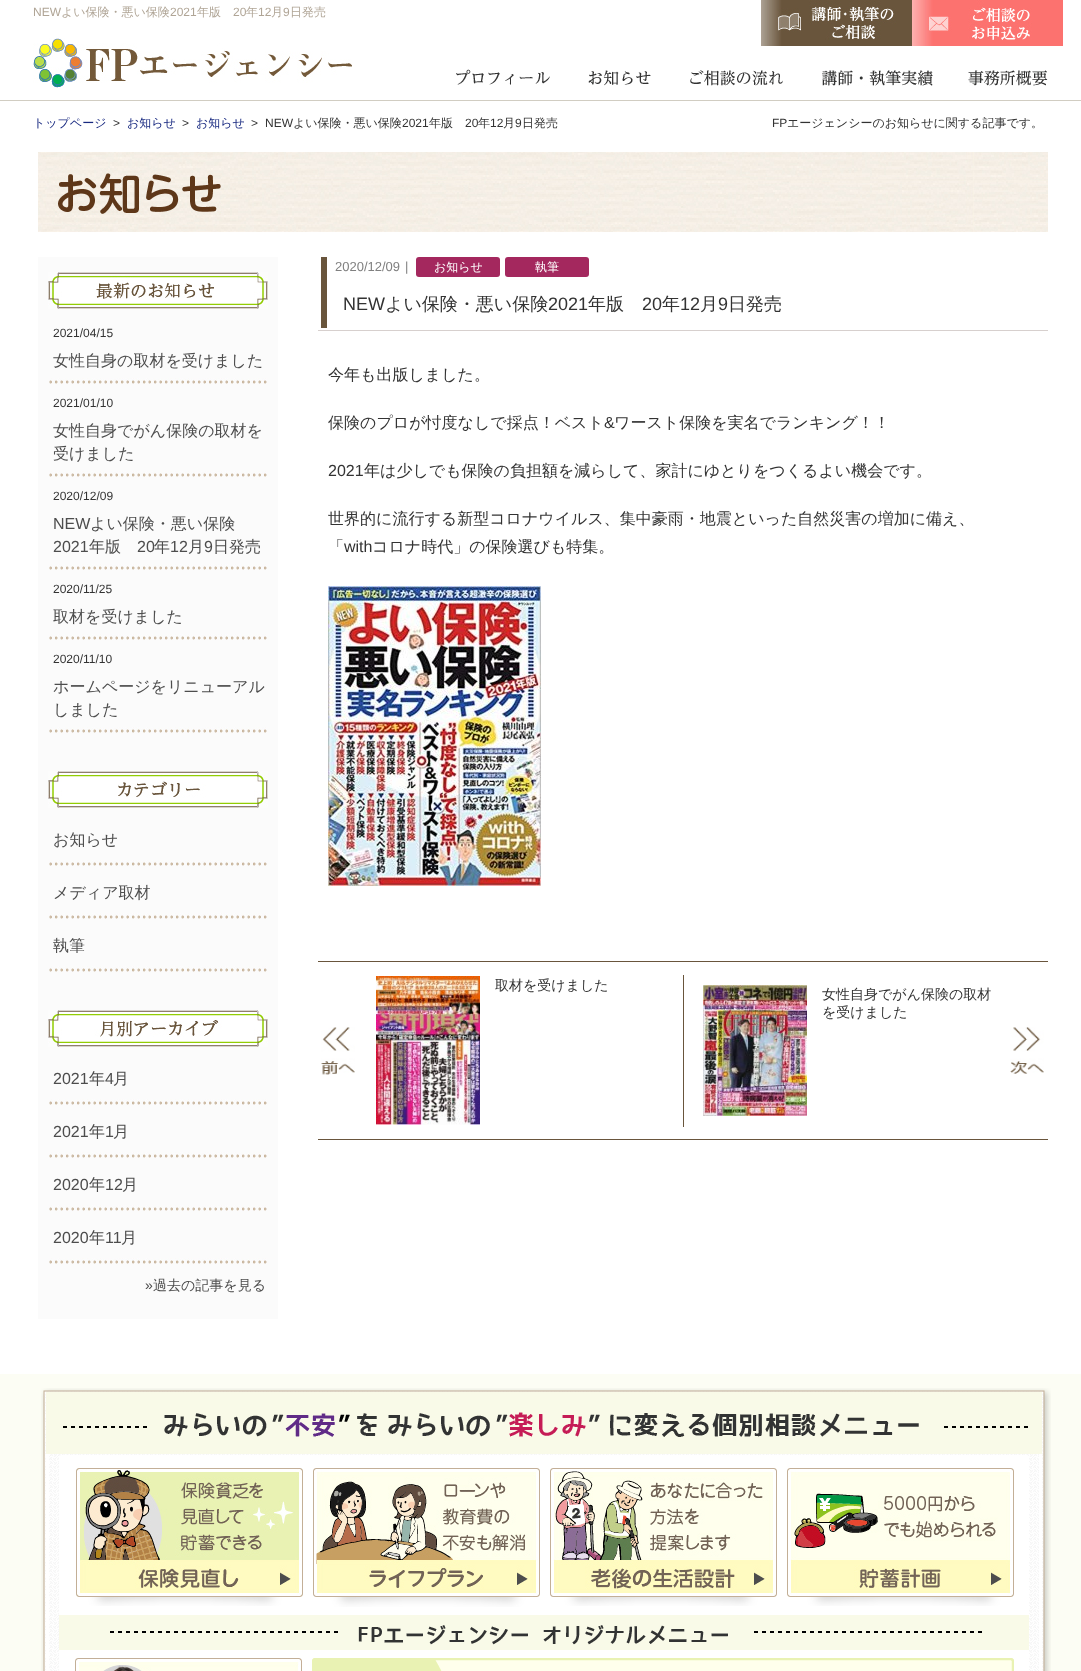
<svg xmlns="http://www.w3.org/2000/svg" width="1081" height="1671">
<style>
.a{font:12px Liberation Sans;fill:#b0a596}
.b{font:500 12px WenQuanYi Zen Hei;fill:#b0a596}
.c{font:500 12px WenQuanYi Zen Hei;fill:#182980}
.d{font:12px Liberation Sans;fill:#333}
.e{font:500 12px WenQuanYi Zen Hei;fill:#333}
.f{font:500 16px WenQuanYi Zen Hei;fill:#4d4d4d}
.g{font:16px Liberation Sans;fill:#4d4d4d}
.h{font:14px Liberation Sans;fill:#4d4d4d}
.i{font:500 14px WenQuanYi Zen Hei;fill:#4d4d4d}
.j{font:13px Liberation Sans;fill:#808080}
.k{font:500 12px WenQuanYi Zen Hei;fill:#fff}
.l{font:18px Liberation Sans;fill:#333}
.m{font:500 18px WenQuanYi Zen Hei;fill:#333}
.n{font:500 16px WenQuanYi Zen Hei;fill:#333}
.o{font:16px Liberation Sans;fill:#333}
.p{font:500 14px WenQuanYi Zen Hei;fill:#333}
</style>
<rect width="100%" height="100%" fill="#fff"/>
<path fill="#d1cdc2" d="M0 100h1081v1H0z"/>
<image href="1.png" x="761" y="0" width="151" height="46"/>
<image href="2.png" x="912" y="0" width="151" height="46"/>
<image href="3.png" x="33" y="38" width="319" height="50"/>
<image href="4.png" x="456" y="69" width="94" height="16"/>
<image href="5.png" x="588" y="70" width="63" height="16"/>
<image href="6.png" x="690" y="70" width="93" height="16"/>
<image href="7.png" x="822" y="70" width="111" height="16"/>
<image href="8.png" x="968" y="70" width="80" height="16"/>
<image href="9.png" x="38" y="152" width="1010" height="80"/>
<path fill="#fbfbfb" d="M38 257h240v1062H38z"/>
<image href="10.png" x="48" y="272" width="220" height="37"/>
<image href="11.png" x="49" y="378" width="218" height="6"/>
<image href="11.png" x="49" y="471" width="218" height="6"/>
<image href="11.png" x="49" y="564" width="218" height="6"/>
<image href="11.png" x="49" y="634" width="218" height="6"/>
<image href="11.png" x="49" y="727" width="218" height="6"/>
<image href="12.png" x="48" y="771" width="220" height="37"/>
<image href="11.png" x="49" y="860" width="218" height="6"/>
<image href="11.png" x="49" y="913" width="218" height="6"/>
<image href="11.png" x="49" y="966" width="218" height="6"/>
<image href="13.png" x="48" y="1010" width="220" height="37"/>
<image href="11.png" x="49" y="1099" width="218" height="6"/>
<image href="11.png" x="49" y="1152" width="218" height="6"/>
<image href="11.png" x="49" y="1205" width="218" height="6"/>
<image href="11.png" x="49" y="1258" width="218" height="6"/>
<path fill="#d7d0ce" d="M318 330h730v1H318z"/>
<path fill="#69553c" d="M321 257h6v71H321z"/>
<rect fill="#a4285e" x="416" y="257" width="84" height="20" rx="3"/>
<rect fill="#a4285e" x="505" y="257" width="84" height="20" rx="3"/>
<image href="14.png" x="328" y="586" width="213" height="300"/>
<path fill="#69553c" d="M318 961h730v1H318z"/>
<path fill="#69553c" d="M318 1139h730v1H318z"/>
<image href="15.png" x="376" y="976" width="104" height="149"/>
<image href="16.png" x="321" y="1027" width="34" height="48"/>
<path fill="#69553c" d="M683 975h1v152H683z"/>
<image href="17.png" x="703" y="985" width="104" height="131"/>
<image href="18.png" x="1010" y="1027" width="34" height="47"/>
<path fill="#fcfdf4" d="M0 1374h1081v297H0z"/>
<image href="19.png" x="41" y="1388" width="1010" height="283"/>
<image href="20.png" x="76" y="1468" width="227" height="138"/>
<image href="21.png" x="313" y="1468" width="227" height="139"/>
<image href="22.png" x="550" y="1468" width="227" height="138"/>
<image href="23.png" x="787" y="1468" width="227" height="138"/>
<image href="24.png" x="75" y="1658" width="227" height="13"/>
<text class="a" x="33" y="16">NEW</text>
<text class="b" x="61" y="16">よい保険・悪い保険</text>
<text class="a" x="170" y="16">2021</text>
<text class="b" x="197" y="16">年版</text>
<text class="a" x="233" y="16">20</text>
<text class="b" x="246" y="16">年</text>
<text class="a" x="258" y="16">12</text>
<text class="b" x="271" y="16">月</text>
<text class="a" x="283" y="16">9</text>
<text class="b" x="290" y="16">日発売</text>
<text class="c" x="33" y="127">トップページ</text>
<text class="d" x="113" y="127">&gt;</text>
<text class="c" x="127" y="127">お知らせ</text>
<text class="d" x="182" y="127">&gt;</text>
<text class="c" x="196" y="127">お知らせ</text>
<text class="d" x="251" y="127">&gt;</text>
<text class="d" x="265" y="127">NEW</text>
<text class="e" x="293" y="127">よい保険・悪い保険</text>
<text class="d" x="402" y="127">2021</text>
<text class="e" x="429" y="127">年版</text>
<text class="d" x="465" y="127">20</text>
<text class="e" x="478" y="127">年</text>
<text class="d" x="490" y="127">12</text>
<text class="e" x="503" y="127">月</text>
<text class="d" x="515" y="127">9</text>
<text class="e" x="522" y="127">日発売</text>
<text class="d" x="772" y="127">FP</text>
<text class="e" x="787" y="127">エージェンシーのお知らせに関する記事です。</text>
<text class="d" x="53" y="337">2021/04/15</text>
<text class="f" x="53" y="366">女性自身の取材を受けました</text>
<text class="d" x="53" y="407">2021/01/10</text>
<text class="f" x="53" y="436">女性自身でがん保険の取材を</text>
<text class="f" x="53" y="459">受けました</text>
<text class="d" x="53" y="500">2020/12/09</text>
<text class="g" x="53" y="529">NEW</text>
<text class="f" x="90" y="529">よい保険・悪い保険</text>
<text class="g" x="53" y="552">2021</text>
<text class="f" x="89" y="552">年版</text>
<text class="g" x="137" y="552">20</text>
<text class="f" x="154" y="552">年</text>
<text class="g" x="170" y="552">12</text>
<text class="f" x="188" y="552">月</text>
<text class="g" x="204" y="552">9</text>
<text class="f" x="213" y="552">日発売</text>
<text class="d" x="53" y="593">2020/11/25</text>
<text class="f" x="53" y="622">取材を受けました</text>
<text class="d" x="53" y="663">2020/11/10</text>
<text class="f" x="53" y="692">ホームページをリニューアル</text>
<text class="f" x="53" y="715">しました</text>
<text class="f" x="53" y="845">お知らせ</text>
<text class="f" x="53" y="898">メディア取材</text>
<text class="f" x="53" y="951">執筆</text>
<text class="g" x="53" y="1084">2021</text>
<text class="f" x="89" y="1084">年</text>
<text class="g" x="105" y="1084">4</text>
<text class="f" x="113" y="1084">月</text>
<text class="g" x="53" y="1137">2021</text>
<text class="f" x="89" y="1137">年</text>
<text class="g" x="105" y="1137">1</text>
<text class="f" x="113" y="1137">月</text>
<text class="g" x="53" y="1190">2020</text>
<text class="f" x="89" y="1190">年</text>
<text class="g" x="105" y="1190">12</text>
<text class="f" x="122" y="1190">月</text>
<text class="g" x="53" y="1243">2020</text>
<text class="f" x="89" y="1243">年</text>
<text class="g" x="105" y="1243">11</text>
<text class="f" x="121" y="1243">月</text>
<text class="h" x="145" y="1290">»</text>
<text class="i" x="153" y="1290">過去の記事を見る</text>
<text class="j" x="335" y="271">2020/12/09</text>
<text class="j" x="405" y="271">|</text>
<text class="k" x="434" y="271">お知らせ</text>
<text class="k" x="535" y="271">執筆</text>
<text class="l" x="343" y="310">NEW</text>
<text class="m" x="385" y="310">よい保険・悪い保険</text>
<text class="l" x="548" y="310">2021</text>
<text class="m" x="588" y="310">年版</text>
<text class="l" x="642" y="310">20</text>
<text class="m" x="662" y="310">年</text>
<text class="l" x="680" y="310">12</text>
<text class="m" x="700" y="310">月</text>
<text class="l" x="718" y="310">9</text>
<text class="m" x="728" y="310">日発売</text>
<text class="n" x="328" y="380">今年も出版しました。</text>
<text class="n" x="328" y="428">保険のプロが忖度なしで採点！ベスト</text>
<text class="o" x="604" y="428">&amp;</text>
<text class="n" x="614" y="428">ワースト保険を実名でランキング！！</text>
<text class="o" x="328" y="476">2021</text>
<text class="n" x="364" y="476">年は少しでも保険の負担額を減らして、家計にゆとりをつくるよい機会です。</text>
<text class="n" x="328" y="524">世界的に流行する新型コロナウイルス、集中豪雨・地震といった自然災害の増加に備え、</text>
<text class="n" x="328" y="552">「</text>
<text class="o" x="344" y="552">with</text>
<text class="n" x="372" y="552">コロナ時代」の保険選びも特集。</text>
<text class="p" x="495" y="990">取材を受けました</text>
<text class="p" x="822" y="999">女性自身でがん保険の取材</text>
<text class="p" x="822" y="1017">を受けました</text>
</svg>
